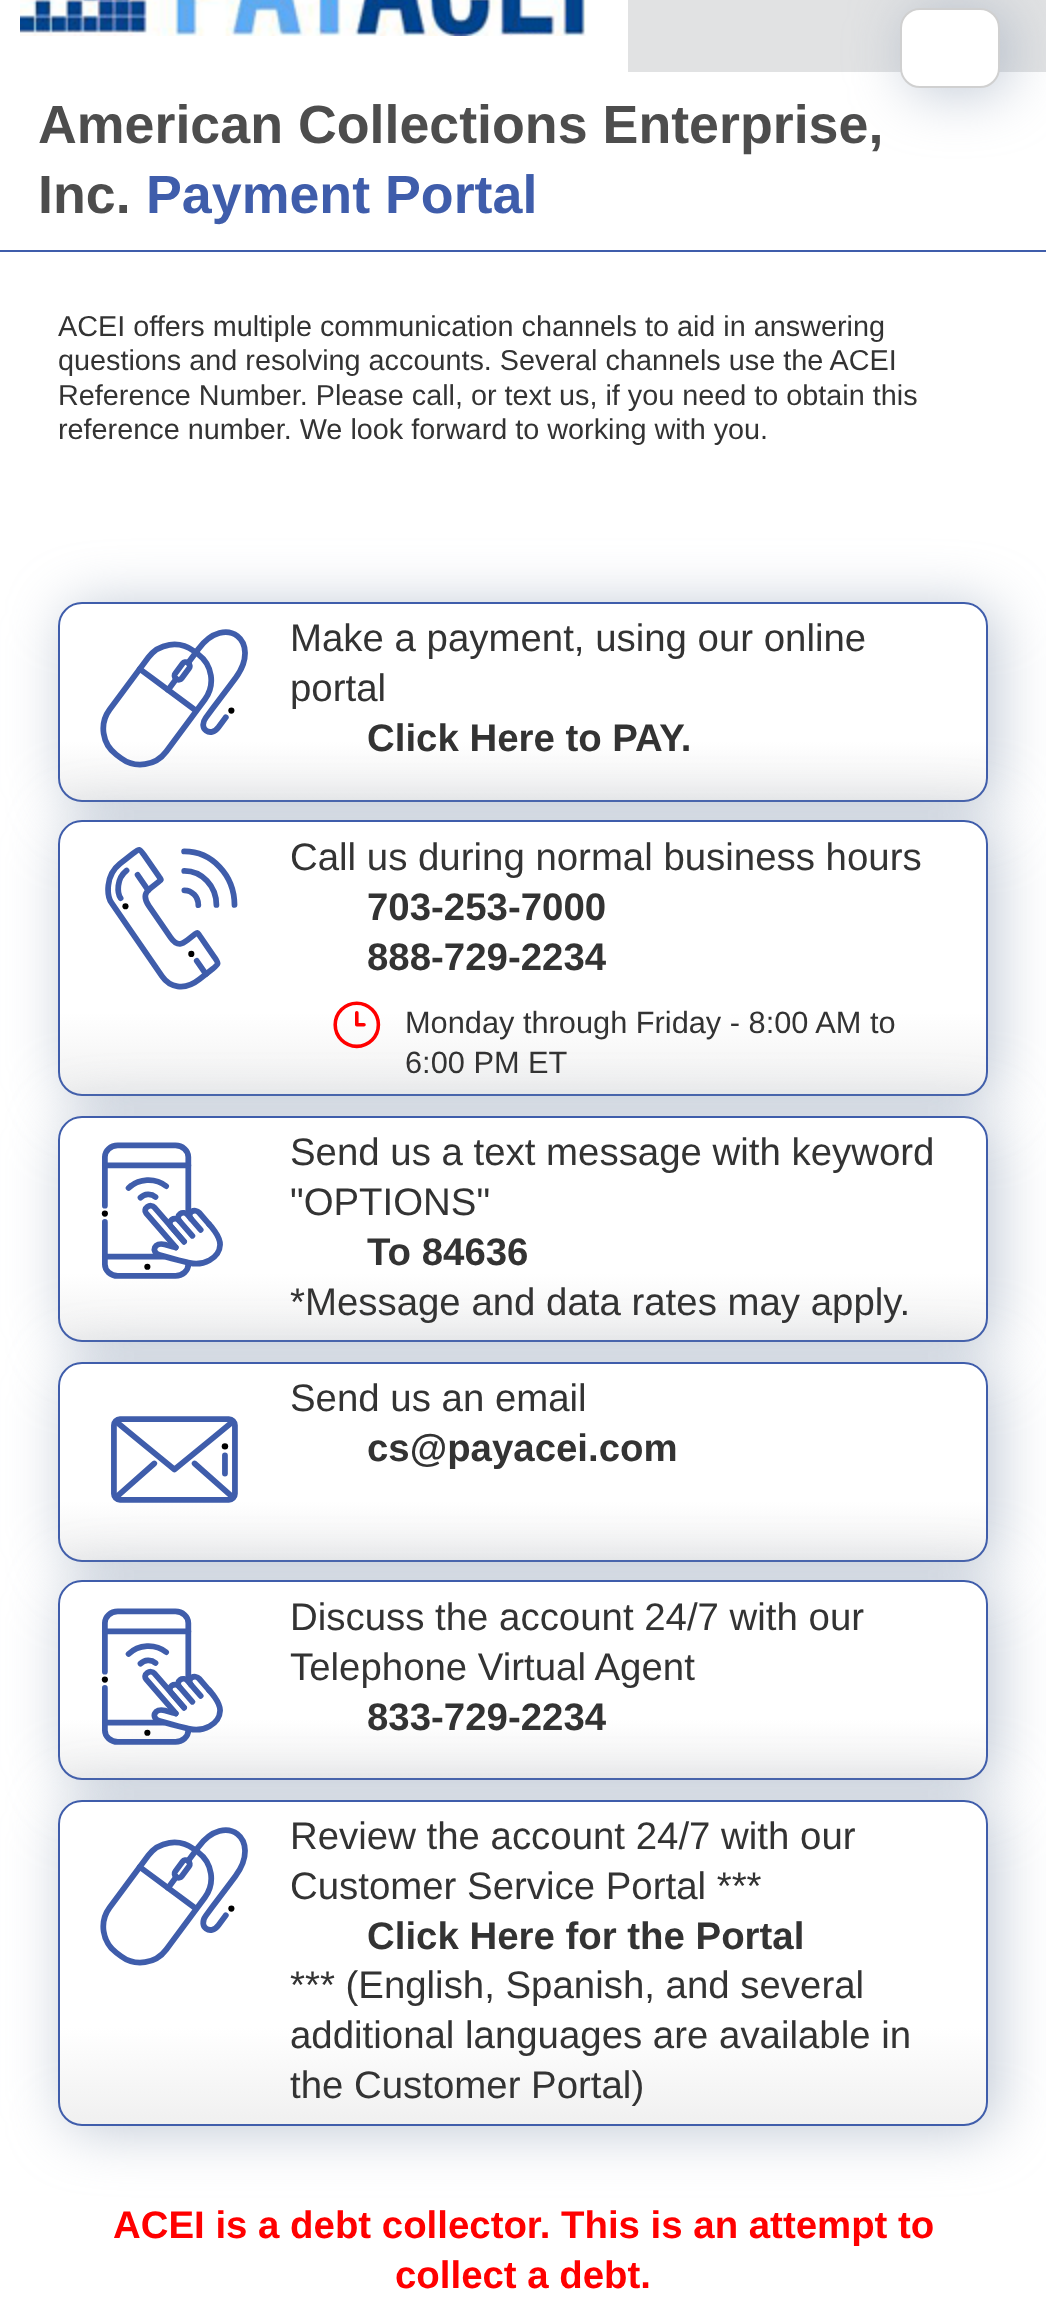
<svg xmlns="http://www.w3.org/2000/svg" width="1046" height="2300">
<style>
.a{font:bold 53.75px Liberation Sans;fill:#4d4d4d}
.b{font:bold 53.75px Liberation Sans;fill:#3f5dab}
.c{font:28.8px Liberation Sans;fill:#333}
.d{font:38.4px Liberation Sans;fill:#333}
.e{font:bold 38.4px Liberation Sans;fill:#333}
.f{font:30.75px Liberation Sans;fill:#333}
.g{font:bold 38.4px Liberation Sans;fill:#f00}
</style>
<defs>
<clipPath id="clip1"><rect x="58" y="602" width="930" height="200" rx="24"/></clipPath>
<linearGradient id="g1" gradientUnits="userSpaceOnUse" x1="523" y1="604" x2="523" y2="800"><stop offset="0.7" stop-color="#fff"/><stop offset="1" stop-color="#f0f0f0"/></linearGradient>
<clipPath id="clip2"><rect x="58" y="820" width="930" height="276" rx="24"/></clipPath>
<linearGradient id="g2" gradientUnits="userSpaceOnUse" x1="523" y1="822" x2="523" y2="1094"><stop offset="0.7" stop-color="#fff"/><stop offset="1" stop-color="#f0f0f0"/></linearGradient>
<clipPath id="clip3"><rect x="58" y="1116" width="930" height="226" rx="24"/></clipPath>
<linearGradient id="g3" gradientUnits="userSpaceOnUse" x1="523" y1="1118" x2="523" y2="1340"><stop offset="0.7" stop-color="#fff"/><stop offset="1" stop-color="#f0f0f0"/></linearGradient>
<clipPath id="clip4"><rect x="58" y="1362" width="930" height="200" rx="24"/></clipPath>
<linearGradient id="g4" gradientUnits="userSpaceOnUse" x1="523" y1="1364" x2="523" y2="1560"><stop offset="0.7" stop-color="#fff"/><stop offset="1" stop-color="#f0f0f0"/></linearGradient>
<clipPath id="clip5"><rect x="58" y="1580" width="930" height="200" rx="24"/></clipPath>
<linearGradient id="g5" gradientUnits="userSpaceOnUse" x1="523" y1="1582" x2="523" y2="1778"><stop offset="0.7" stop-color="#fff"/><stop offset="1" stop-color="#f0f0f0"/></linearGradient>
<clipPath id="clip6"><rect x="58" y="1800" width="930" height="326" rx="24"/></clipPath>
<linearGradient id="g6" gradientUnits="userSpaceOnUse" x1="523" y1="1802" x2="523" y2="2124"><stop offset="0.7" stop-color="#fff"/><stop offset="1" stop-color="#f0f0f0"/></linearGradient>
</defs>
<rect width="100%" height="100%" fill="#e1e2e3"/>
<path fill="#fff" d="M0 0h628v72H0z"/>
<image href="1.png" x="20" y="0" width="566" height="36"/>
<path fill="#fff" d="M0 72h1046v2228H0z"/>
<rect fill="#92a1b899" filter="blur(29px)" x="908" y="12" width="100" height="80" rx="20"/>
<rect fill="#fff" stroke="#d0d0d0" stroke-width="2" x="901" y="9" width="98" height="78" rx="19"/>
<path fill="#3f5dab" d="M0 250h1046v2H0z"/>
<rect fill="#92a1b899" filter="blur(29px)" x="66" y="606" width="930" height="200" rx="24"/>
<g clip-path="url(#clip1)">
<path fill="url(#g1)" d="M58 604h930v196H58z"/>
</g>
<rect fill="none" stroke="#3f5dab" stroke-width="2" x="59" y="603" width="928" height="198" rx="23"/>
<image href="2.png" x="100" y="629" width="148" height="139"/>
<rect fill="#92a1b899" filter="blur(29px)" x="66" y="824" width="930" height="276" rx="24"/>
<g clip-path="url(#clip2)">
<path fill="url(#g2)" d="M58 822h930v272H58z"/>
</g>
<rect fill="none" stroke="#3f5dab" stroke-width="2" x="59" y="821" width="928" height="274" rx="23"/>
<image href="3.png" x="105" y="847" width="133" height="143"/>
<image href="4.png" x="333" y="1001" width="48" height="48"/>
<rect fill="#92a1b899" filter="blur(29px)" x="66" y="1120" width="930" height="226" rx="24"/>
<g clip-path="url(#clip3)">
<path fill="url(#g3)" d="M58 1118h930v222H58z"/>
</g>
<rect fill="none" stroke="#3f5dab" stroke-width="2" x="59" y="1117" width="928" height="224" rx="23"/>
<image href="5.png" x="101" y="1142" width="122" height="137"/>
<rect fill="#92a1b899" filter="blur(29px)" x="66" y="1366" width="930" height="200" rx="24"/>
<g clip-path="url(#clip4)">
<path fill="url(#g4)" d="M58 1364h930v196H58z"/>
</g>
<rect fill="none" stroke="#3f5dab" stroke-width="2" x="59" y="1363" width="928" height="198" rx="23"/>
<image href="6.png" x="111" y="1416" width="127" height="87"/>
<rect fill="#92a1b899" filter="blur(29px)" x="66" y="1584" width="930" height="200" rx="24"/>
<g clip-path="url(#clip5)">
<path fill="url(#g5)" d="M58 1582h930v196H58z"/>
</g>
<rect fill="none" stroke="#3f5dab" stroke-width="2" x="59" y="1581" width="928" height="198" rx="23"/>
<image href="7.png" x="101" y="1608" width="122" height="137"/>
<rect fill="#92a1b899" filter="blur(29px)" x="66" y="1804" width="930" height="326" rx="24"/>
<g clip-path="url(#clip6)">
<path fill="url(#g6)" d="M58 1802h930v322H58z"/>
</g>
<rect fill="none" stroke="#3f5dab" stroke-width="2" x="59" y="1801" width="928" height="324" rx="23"/>
<image href="8.png" x="100" y="1827" width="148" height="139"/>
<text class="a" x="38" y="143">American Collections Enterprise,</text>
<text class="a" x="38" y="213">Inc.</text>
<text class="b" x="146" y="213">Payment Portal</text>
<text class="c" x="58" y="336">ACEI offers multiple communication channels to aid in answering</text>
<text class="c" x="58" y="370">questions and resolving accounts. Several channels use the ACEI</text>
<text class="c" x="58" y="405">Reference Number. Please call, or text us, if you need to obtain this</text>
<text class="c" x="58" y="439">reference number. We look forward to working with you.</text>
<text class="d" x="290" y="651">Make a payment, using our online</text>
<text class="d" x="290" y="701">portal</text>
<text class="e" x="367" y="751">Click Here to PAY.</text>
<text class="d" x="290" y="870">Call us during normal business hours</text>
<text class="e" x="367" y="920">703-253-7000</text>
<text class="e" x="367" y="970">888-729-2234</text>
<text class="f" x="405" y="1033">Monday through Friday - 8:00 AM to</text>
<text class="f" x="405" y="1073">6:00 PM ET</text>
<text class="d" x="290" y="1165">Send us a text message with keyword</text>
<text class="d" x="290" y="1215">"OPTIONS"</text>
<text class="e" x="367" y="1265">To 84636</text>
<text class="d" x="290" y="1315">*Message and data rates may apply.</text>
<text class="d" x="290" y="1411">Send us an email</text>
<text class="e" x="367" y="1461">cs@payacei.com</text>
<text class="d" x="290" y="1630">Discuss the account 24/7 with our</text>
<text class="d" x="290" y="1680">Telephone Virtual Agent</text>
<text class="e" x="367" y="1730">833-729-2234</text>
<text class="d" x="290" y="1849">Review the account 24/7 with our</text>
<text class="d" x="290" y="1899">Customer Service Portal ***</text>
<text class="e" x="367" y="1949">Click Here for the Portal</text>
<text class="d" x="290" y="1998">*** (English, Spanish, and several</text>
<text class="d" x="290" y="2048">additional languages are available in</text>
<text class="d" x="290" y="2098">the Customer Portal)</text>
<text class="g" x="113" y="2238">ACEI is a debt collector. This is an attempt to</text>
<text class="g" x="395" y="2288">collect a debt.</text>
</svg>
